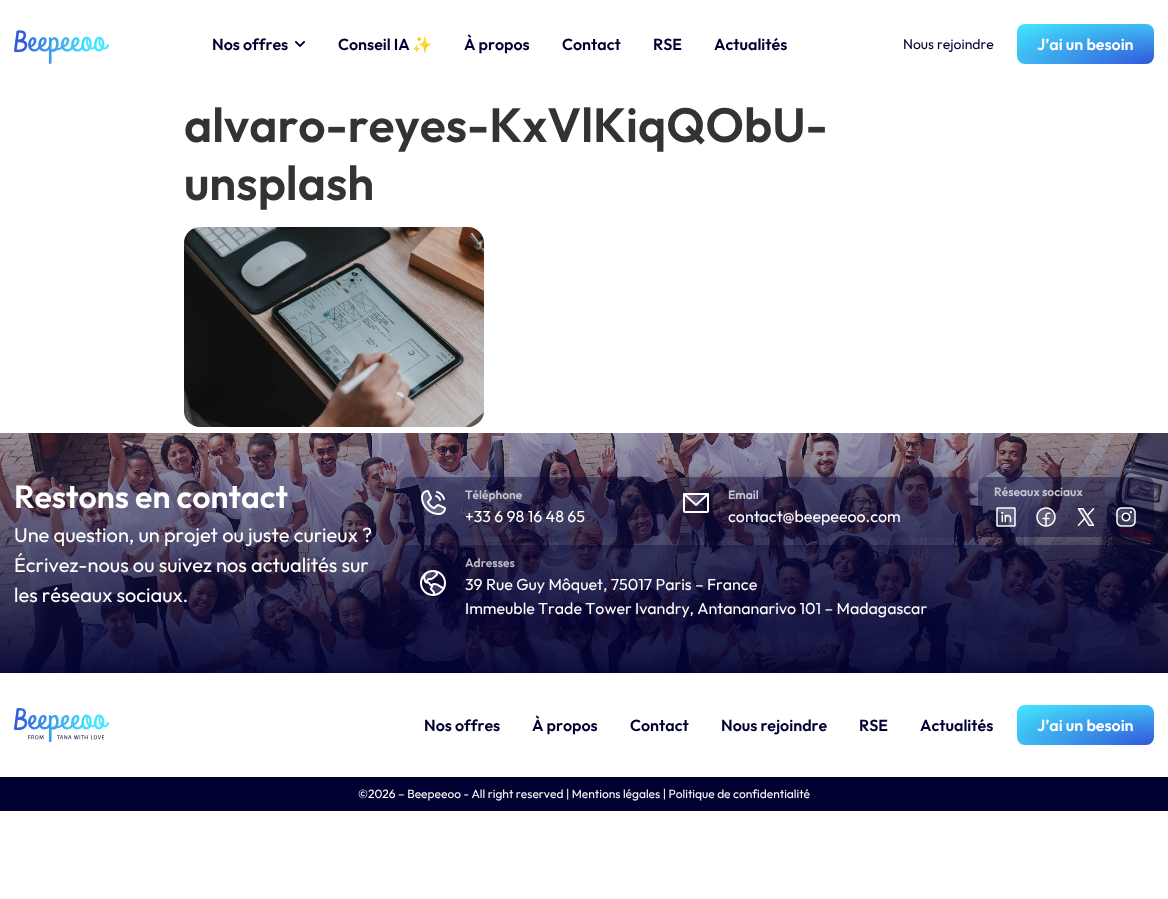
<svg xmlns="http://www.w3.org/2000/svg" width="1168" height="899">
<style>*{font-kerning:none!important;font-variant-ligatures:none!important}</style>
<style>
.a{font:600 16px Outfit;fill:#000131}
.b{font:bold 16px Noto Color Emoji;fill:#000131}
.c{font:14px Outfit;fill:#000131}
.d{font:600 16px Outfit;fill:#fff}
.e{font:600 48px Outfit;fill:#333}
.f{font:600 32px Outfit;fill:#fff}
.g{font:20px Outfit;fill:#fff}
.h{font:600 12px Outfit;fill:#c6c5cf}
.i{font:16px Outfit;fill:#fff}
.j{font:600 12px Outfit;fill:#bcbac5}
.k{font:12px Outfit;fill:#fff}
</style>
<defs>
<radialGradient id="g1" gradientUnits="userSpaceOnUse" cx="0" cy="0" r="1" gradientTransform="matrix(194 0 0 57 1154 64)"><stop offset="0" stop-color="#3257da"/><stop offset="1" stop-color="#44e9ff"/></radialGradient>
<clipPath id="clip1"><path d="M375 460h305v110h-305zm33 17h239c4.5 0 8 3.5 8 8v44c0 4.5-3.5 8-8 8h-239c-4.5 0-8-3.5-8-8v-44c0-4.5 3.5-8 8-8z" clip-rule="evenodd"/></clipPath>
<clipPath id="clip2"><path d="M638 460h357v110h-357zm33 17h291c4.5 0 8 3.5 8 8v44c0 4.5-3.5 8-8 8h-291c-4.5 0-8-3.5-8-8v-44c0-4.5 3.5-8 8-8z" clip-rule="evenodd"/></clipPath>
<clipPath id="clip3"><path d="M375 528h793v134h-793zm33 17h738c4.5 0 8 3.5 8 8v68c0 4.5-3.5 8-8 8h-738c-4.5 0-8-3.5-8-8v-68c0-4.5 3.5-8 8-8z" clip-rule="evenodd"/></clipPath>
<radialGradient id="g2" gradientUnits="userSpaceOnUse" cx="0" cy="0" r="1" gradientTransform="matrix(194 0 0 57 1154 745)"><stop offset="0" stop-color="#3257da"/><stop offset="1" stop-color="#44e9ff"/></radialGradient>
</defs>
<rect width="100%" height="100%" fill="#fff"/>
<image href="1.png" x="14" y="30" width="95" height="34"/>
<image href="2.png" x="295" y="41" width="10" height="6"/>
<rect fill="url(#g1)" x="1017" y="24" width="137" height="40" rx="8"/>
<image href="3.png" x="184" y="227" width="300" height="200"/>
<image href="4.png" x="0" y="433" width="1168" height="240"/>
<g clip-path="url(#clip1)">
<rect fill="#00013166" filter="blur(8px)" x="400" y="485" width="255" height="60" rx="8"/>
</g>
<rect fill="#00013166" x="400" y="477" width="255" height="60" rx="8"/>
<image href="5.png" x="421" y="490" width="25" height="25"/>
<g clip-path="url(#clip2)">
<rect fill="#00013166" filter="blur(8px)" x="663" y="485" width="307" height="60" rx="8"/>
</g>
<rect fill="#00013166" x="663" y="477" width="307" height="60" rx="8"/>
<image href="6.png" x="683" y="493" width="26" height="20"/>
<rect fill="#00013166" x="978" y="477" width="176" height="60" rx="8"/>
<image href="7.png" x="996" y="507" width="20" height="20"/>
<image href="8.png" x="1036" y="507" width="20" height="20"/>
<image href="9.png" x="1077" y="508" width="18" height="18"/>
<image href="10.png" x="1116" y="507" width="20" height="20"/>
<g clip-path="url(#clip3)">
<rect fill="#00013166" filter="blur(8px)" x="400" y="553" width="754" height="84" rx="8"/>
</g>
<rect fill="#00013166" x="400" y="545" width="754" height="84" rx="8"/>
<image href="11.png" x="420" y="570" width="26" height="26"/>
<image href="12.png" x="14" y="708" width="95" height="34"/>
<rect fill="url(#g2)" x="1017" y="705" width="137" height="40" rx="8"/>
<path fill="#000131" d="M0 777h1168v34H0z"/>
<text class="a" x="212" y="50">Nos offres</text>
<text class="a" x="338" y="50">Conseil IA</text>
<text class="b" x="412" y="50">✨</text>
<text class="a" x="464" y="50">À propos</text>
<text class="a" x="562" y="50">Contact</text>
<text class="a" x="653" y="50">RSE</text>
<text class="a" x="714" y="50">Actualités</text>
<text class="c" x="903" y="49">Nous rejoindre</text>
<text class="d" x="1037" y="50">J’ai un besoin</text>
<text class="e" x="184" y="142">alvaro-reyes-KxVlKiqQObU-</text>
<text class="e" x="184" y="200">unsplash</text>
<text class="f" x="14" y="508">Restons en contact</text>
<text class="g" x="14" y="542">Une question, un projet ou juste curieux ?</text>
<text class="g" x="14" y="572">Écrivez-nous ou suivez nos actualités sur</text>
<text class="g" x="14" y="602">les réseaux sociaux.</text>
<text class="h" x="465" y="499">Téléphone</text>
<text class="i" x="465" y="522">+33 6 98 16 48 65</text>
<text class="h" x="728" y="499">Email</text>
<text class="i" x="728" y="522">contact@beepeeoo.com</text>
<text class="h" x="994" y="496">Réseaux sociaux</text>
<text class="j" x="465" y="567">Adresses</text>
<text class="i" x="465" y="590">39 Rue Guy Môquet, 75017 Paris – France</text>
<text class="i" x="465" y="614">Immeuble Trade Tower</text>
<text class="i" x="635" y="614">Ivandry, Antananarivo 101 – Madagascar</text>
<text class="a" x="424" y="731">Nos offres</text>
<text class="a" x="532" y="731">À propos</text>
<text class="a" x="630" y="731">Contact</text>
<text class="a" x="721" y="731">Nous rejoindre</text>
<text class="a" x="859" y="731">RSE</text>
<text class="a" x="920" y="731">Actualités</text>
<text class="d" x="1037" y="731">J’ai un besoin</text>
<text class="k" x="358" y="798">©2026 – Beepeeoo - All right reserved | Mentions légales | Politique de confidentialité</text>
</svg>
